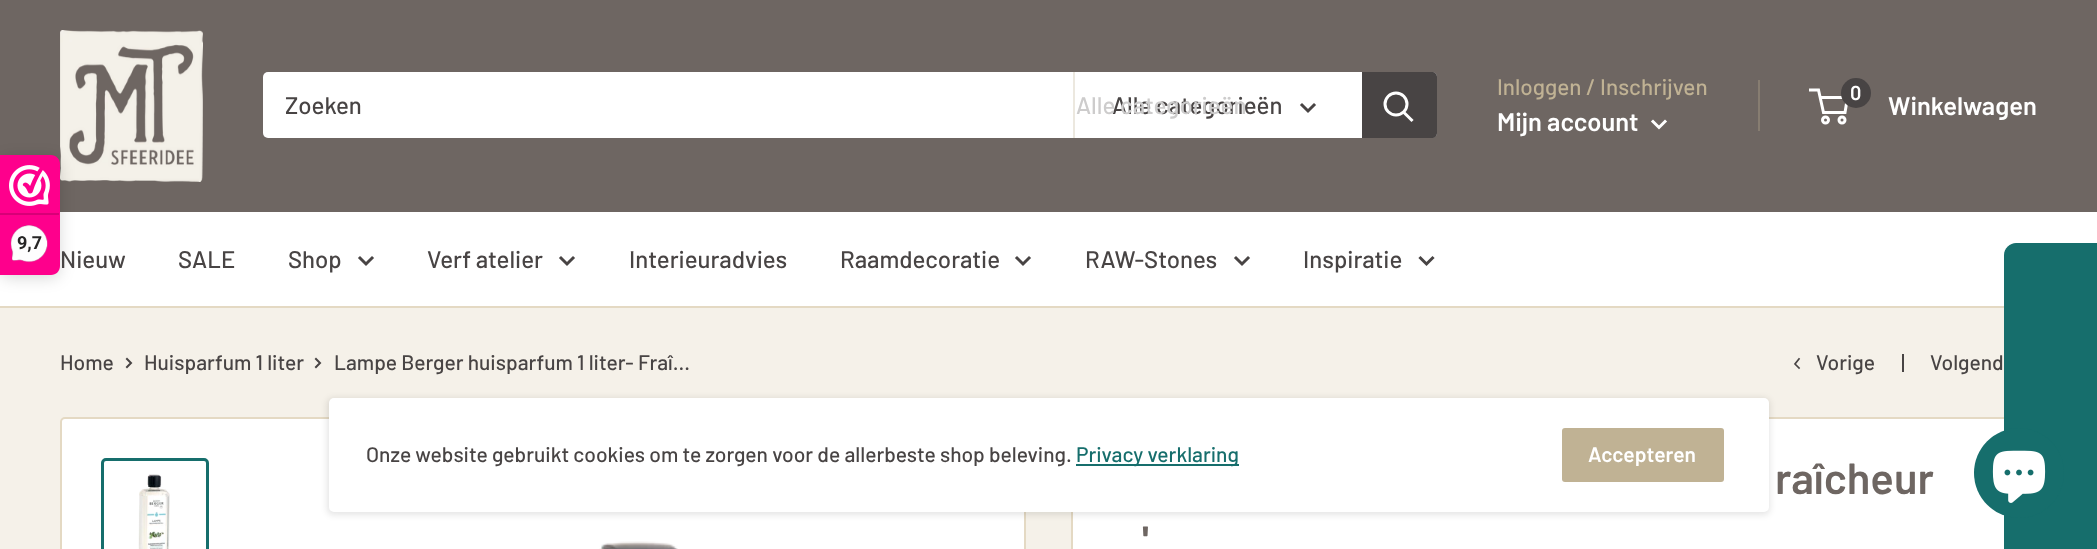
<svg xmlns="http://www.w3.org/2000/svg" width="2097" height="549">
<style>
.a{font:bold 18px Roboto;fill:#272626}
.b{font:500 24px Barlow;fill:#484444}
.c{font:500 24px Barlow;fill:#cdcccc}
.d{font:500 22.5px Barlow;fill:#c0b294}
.e{font:600 25.5px Barlow;fill:#fff}
.f{font:600 20px Barlow;fill:#fff}
.g{font:500 21px Barlow;fill:#484444}
.h{font:600 43.5px Barlow;fill:#6e6662}
.i{font:500 21px Barlow;fill:#166e6c}
.j{font:600 21px Barlow;fill:#fff}
</style>
<rect width="100%" height="100%" fill="#f5f1e9"/>
<path fill="#6e6662" d="M0 0h2097v212H0z"/>
<image href="3.png" x="60" y="30" width="143" height="152"/>
<path fill="#fff" d="M0 212h2097v94H0z"/>
<rect fill="#00000026" filter="blur(7.5px)" y="158" width="60" height="120" rx="9"/>
<path fill="#fe008c" d="M0 155h51c5 0 9 4 9 9v102c0 5-4 9-9 9h-51z"/>
<image href="1.png" x="9" y="165" width="41" height="41"/>
<path fill="#d80077" d="M0 213h59v2H0z"/>
<image href="2.png" x="10" y="225" width="38" height="38"/>
<rect fill="#fff" x="263" y="72" width="1174" height="66" rx="5"/>
<path fill="#ece8df" d="M1073 72h2v66H1073z"/>
<path fill="none" stroke="#484444" stroke-width="3" stroke-linecap="square" d="M1314 105l-6 6l-6-6"/>
<path fill="#484444" d="M1362 72h70c3 0 5 2 5 5v56c0 3-2 5-5 5h-70z"/>
<path fill="none" stroke="#fff" stroke-width="3" stroke-linecap="square" d="M1411.5 120l-7.5-7.5"/>
<circle fill="none" stroke="#fff" stroke-width="3" cx="1396" cy="104" r="11"/>
<path fill="#877d71" d="M1758 80h2v51H1758z"/>
<path fill="none" stroke="#fff" stroke-width="3" stroke-linecap="square" d="M1665 121.5l-6 6l-6-6"/>
<circle fill="none" stroke="#fff" stroke-width="3" cx="1825.5" cy="120" r="3"/>
<circle fill="none" stroke="#fff" stroke-width="3" cx="1842" cy="120" r="3"/>
<path fill="none" stroke="#fff" stroke-width="3" d="M1820 97.5h27.5l-2.5 15h-21.5l-5-22.5h-9.5"/>
<circle fill="#484444" cx="1856" cy="93" r="15"/>
<path fill="#e4d9c3" d="M0 306h2004v2H0z"/>
<path fill="none" stroke="#484444" stroke-width="3" stroke-linecap="square" d="M372 258l-6 6l-6-6"/>
<path fill="none" stroke="#484444" stroke-width="3" stroke-linecap="square" d="M573 258l-6 6l-6-6"/>
<path fill="none" stroke="#484444" stroke-width="3" stroke-linecap="square" d="M1029 258l-6 6l-6-6"/>
<path fill="none" stroke="#484444" stroke-width="3" stroke-linecap="square" d="M1248 258l-6 6l-6-6"/>
<path fill="none" stroke="#484444" stroke-width="3" stroke-linecap="square" d="M1432.5 258l-6 6l-6-6"/>
<path fill="#fff" d="M1073 419h931v130H1073z"/>
<path fill="none" stroke="#e4d9c3" stroke-width="2" d="M1072 418h964v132H1072z"/>
<path fill="#166e6c" d="M2004 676v-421c0-7 6-12 12-12h81v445h-81c-6 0-12-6-12-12z"/>
<path fill="none" stroke="#484444" stroke-width="2" stroke-linecap="square" d="M127 359l4 4l-4 4"/>
<path fill="none" stroke="#484444" stroke-width="2" stroke-linecap="square" d="M316 359l4 4l-4 4"/>
<path fill="none" stroke="#484444" stroke-width="1.7" stroke-linecap="square" d="M1799 368l-4-4l4-5"/>
<path fill="#484444" d="M1902 354h2v18H1902z"/>
<rect fill="#fff" stroke="#e4d9c3" stroke-width="2" x="61" y="418" width="964" height="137" rx="4"/>
<rect fill="none" stroke="#166e6c" stroke-width="3" x="102.5" y="459.5" width="105" height="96" rx="3.5"/>
<image href="4.png" x="138" y="474" width="32" height="75"/>
<image href="5.png" x="599" y="541" width="79" height="8"/>
<circle fill="#166e6c" cx="2019" cy="473" r="45"/>
<image href="6.png" x="1992" y="450" width="54" height="53"/>
<rect fill="#0000001a" filter="blur(3px)" x="327" y="398" width="1443" height="117" rx="6"/>
<rect fill="#fff" x="329" y="398" width="1440" height="114" rx="5"/>
<path fill="#166e6c" d="M1076 464h163v2H1076z"/>
<rect fill="#c0b294" x="1562" y="428" width="162" height="54" rx="3"/>
<text class="a" x="17" y="249">9,7</text>
<text class="b" x="285" y="114">Zoeken</text>
<text class="b" x="1112" y="114">Alle categorieën</text>
<text class="c" x="1076" y="114">Alle categorieën</text>
<text class="d" x="1497" y="95">Inloggen / Inschrijven</text>
<text class="e" x="1497" y="131">Mijn account</text>
<text class="f" x="1850" y="100">0</text>
<text class="e" x="1888" y="115">Winkelwagen</text>
<text class="b" x="60" y="268">Nieuw</text>
<text class="b" x="178" y="268">SALE</text>
<text class="b" x="288" y="268">Shop</text>
<text class="b" x="427" y="268">Verf atelier</text>
<text class="b" x="629" y="268">Interieuradvies</text>
<text class="b" x="840" y="268">Raamdecoratie</text>
<text class="b" x="1085" y="268">RAW-Stones</text>
<text class="b" x="1303" y="268">Inspiratie</text>
<text class="g" x="60" y="370">Home</text>
<text class="g" x="144" y="370">Huisparfum 1 liter</text>
<text class="g" x="334" y="370">Lampe Berger huisparfum 1 liter- Fraî...</text>
<text class="g" x="1816" y="370">Vorige</text>
<text class="g" x="1930" y="370">Volgend</text>
<text class="h" x="1775" y="494">raîcheur</text>
<text class="h" x="1142" y="557">'</text>
<text class="g" x="366" y="462">Onze website gebruikt cookies om te zorgen voor de allerbeste shop beleving.</text>
<text class="i" x="1076" y="462">Privacy verklaring</text>
<text class="j" x="1588" y="462">Accepteren</text>
</svg>
